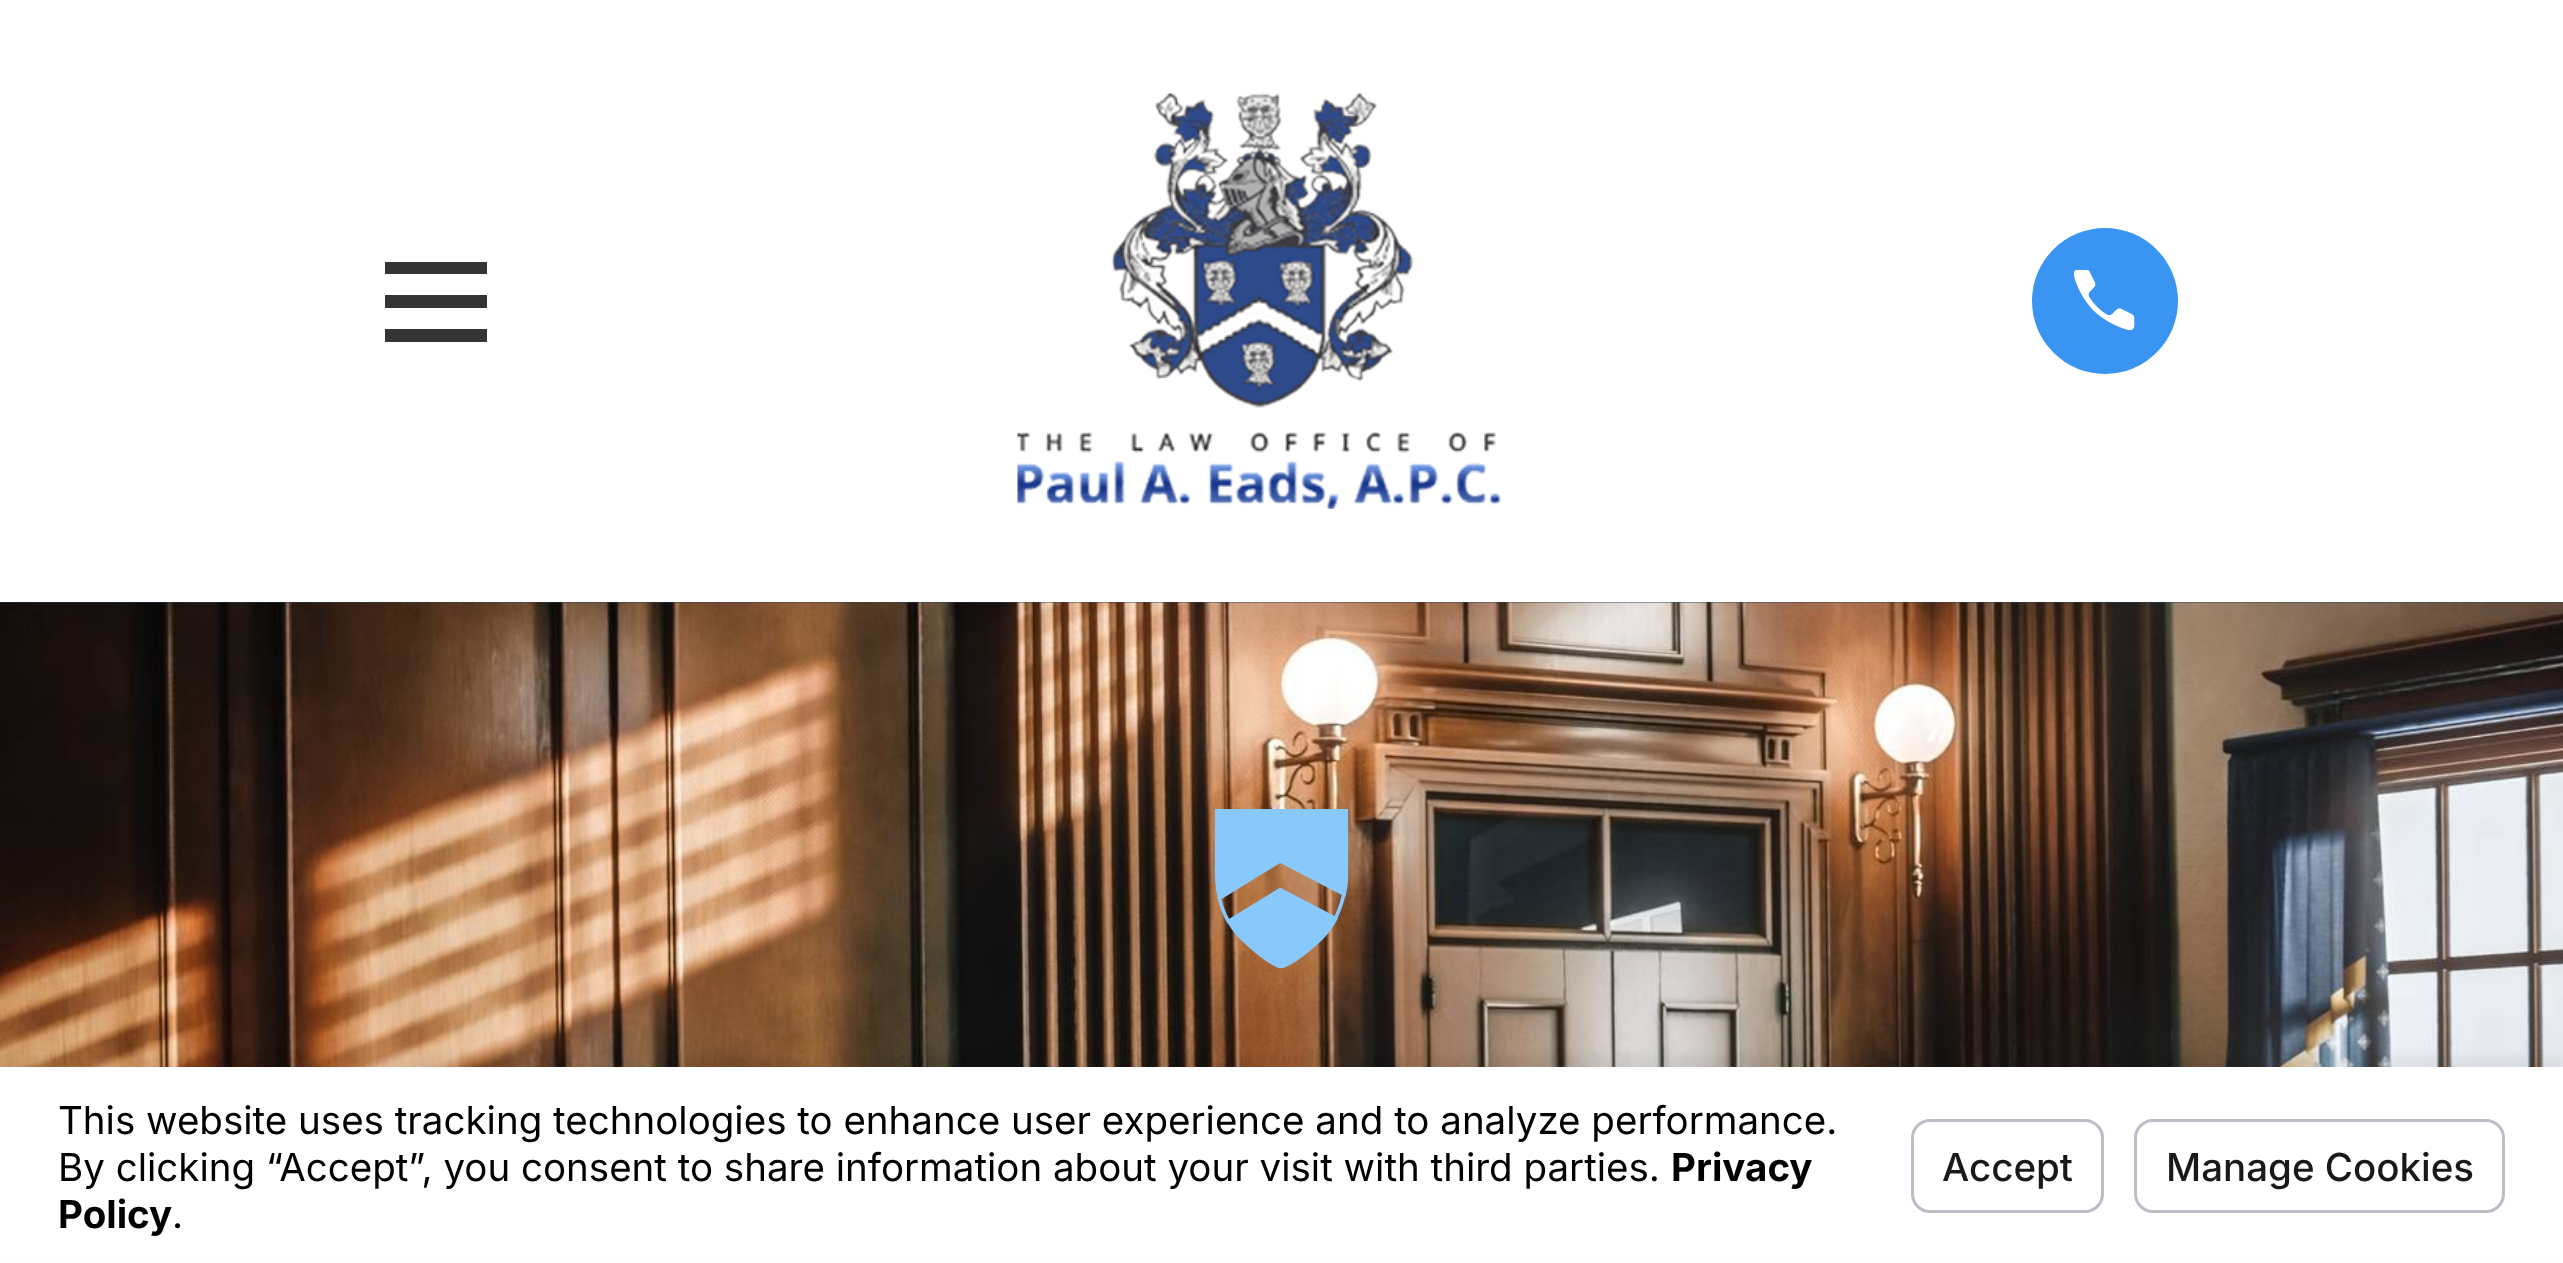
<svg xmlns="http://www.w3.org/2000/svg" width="2563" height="1263">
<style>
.a{font:38.5px Inter;fill:#000}
.b{font:bold 38.5px Inter;fill:#000}
.c{font:500 38.5px Inter;fill:#191919}
</style>
<defs>
<clipPath id="clip1"><path d="M385 250h102v102H385z"/></clipPath>
</defs>
<rect width="100%" height="100%" fill="#fff"/>
<g clip-path="url(#clip1)">
<path fill="#343434" d="M385 262v12h103v-12zm0 33v13h103v-13zm0 34v13h103v-13z"/>
</g>
<image href="1.png" x="1017" y="93" width="485" height="416"/>
<circle fill="#3994f2" cx="2105" cy="301" r="73"/>
<image href="2.png" x="2074" y="270" width="61" height="60"/>
<path fill="#244165" d="M0 602h2563v1H0z"/>
<image href="3.png" x="0" y="602" width="2563" height="465"/>
<image href="4.png" x="1214" y="809" width="135" height="159"/>
<path fill="#0000000d" filter="blur(4px)" d="M0 1056h2563v198H0z"/>
<path fill="#fff" d="M0 1067h2563v190H0z"/>
<rect fill="none" stroke="#bcbec7" stroke-width="3" x="1912.5" y="1120.5" width="190" height="91" rx="17.5"/>
<rect fill="none" stroke="#bcbec7" stroke-width="3" x="2135.5" y="1120.5" width="368" height="91" rx="17.5"/>
<text class="a" x="58" y="1134">This website uses tracking technologies to enhance user experience and to analyze performance.</text>
<text class="a" x="58" y="1181">By clicking “Accept”, you consent to share information about your visit with third parties.</text>
<text class="b" x="1671" y="1181">Privacy</text>
<text class="b" x="58" y="1228">Policy</text>
<text class="a" x="172" y="1228">.</text>
<text class="c" x="1942" y="1181">Accept</text>
<text class="c" x="2166" y="1181">Manage Cookies</text>
</svg>
